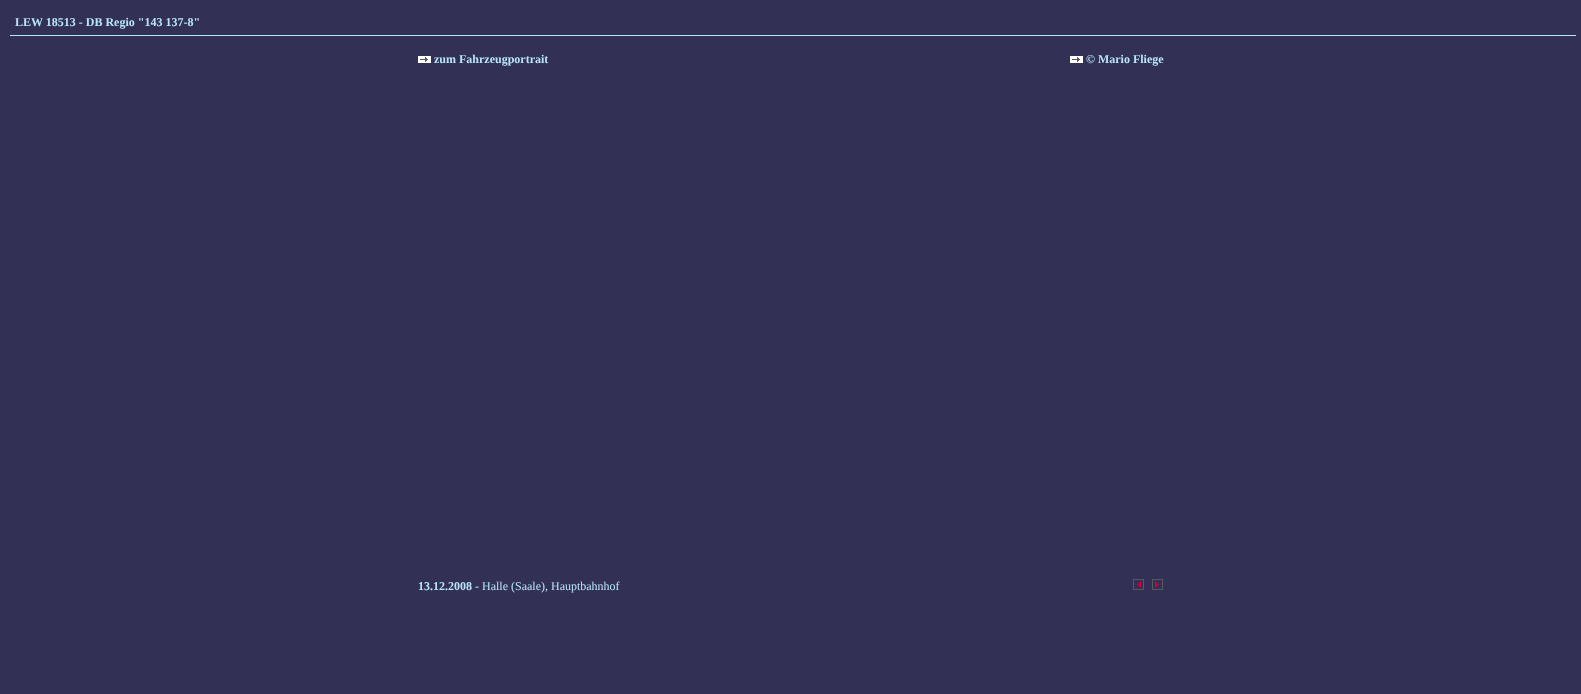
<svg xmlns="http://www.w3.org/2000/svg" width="1581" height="694">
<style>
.a{font:bold 12px Liberation Serif;fill:#b8e4fa}
.b{font:12px Liberation Serif;fill:#b8e4fa}
</style>
<rect width="100%" height="100%" fill="#323055"/>
<path fill="#b8e4fa" d="M10 35h1566v1H10z"/>
<image href="1.png" x="418" y="56" width="13" height="7"/>
<image href="1.png" x="1070" y="56" width="13" height="7"/>
<image href="2.png" x="1133" y="579" width="11" height="11"/>
<image href="3.png" x="1152" y="579" width="11" height="11"/>
<text class="a" x="15" y="26">LEW 18513 - DB Regio "143 137-8"</text>
<text class="a" x="434" y="63">zum Fahrzeugportrait</text>
<text class="a" x="1086" y="63">© Mario Fliege</text>
<text class="a" x="418" y="590">13.12.2008</text>
<text class="b" x="475" y="590">- Halle (Saale), Hauptbahnhof</text>
</svg>
